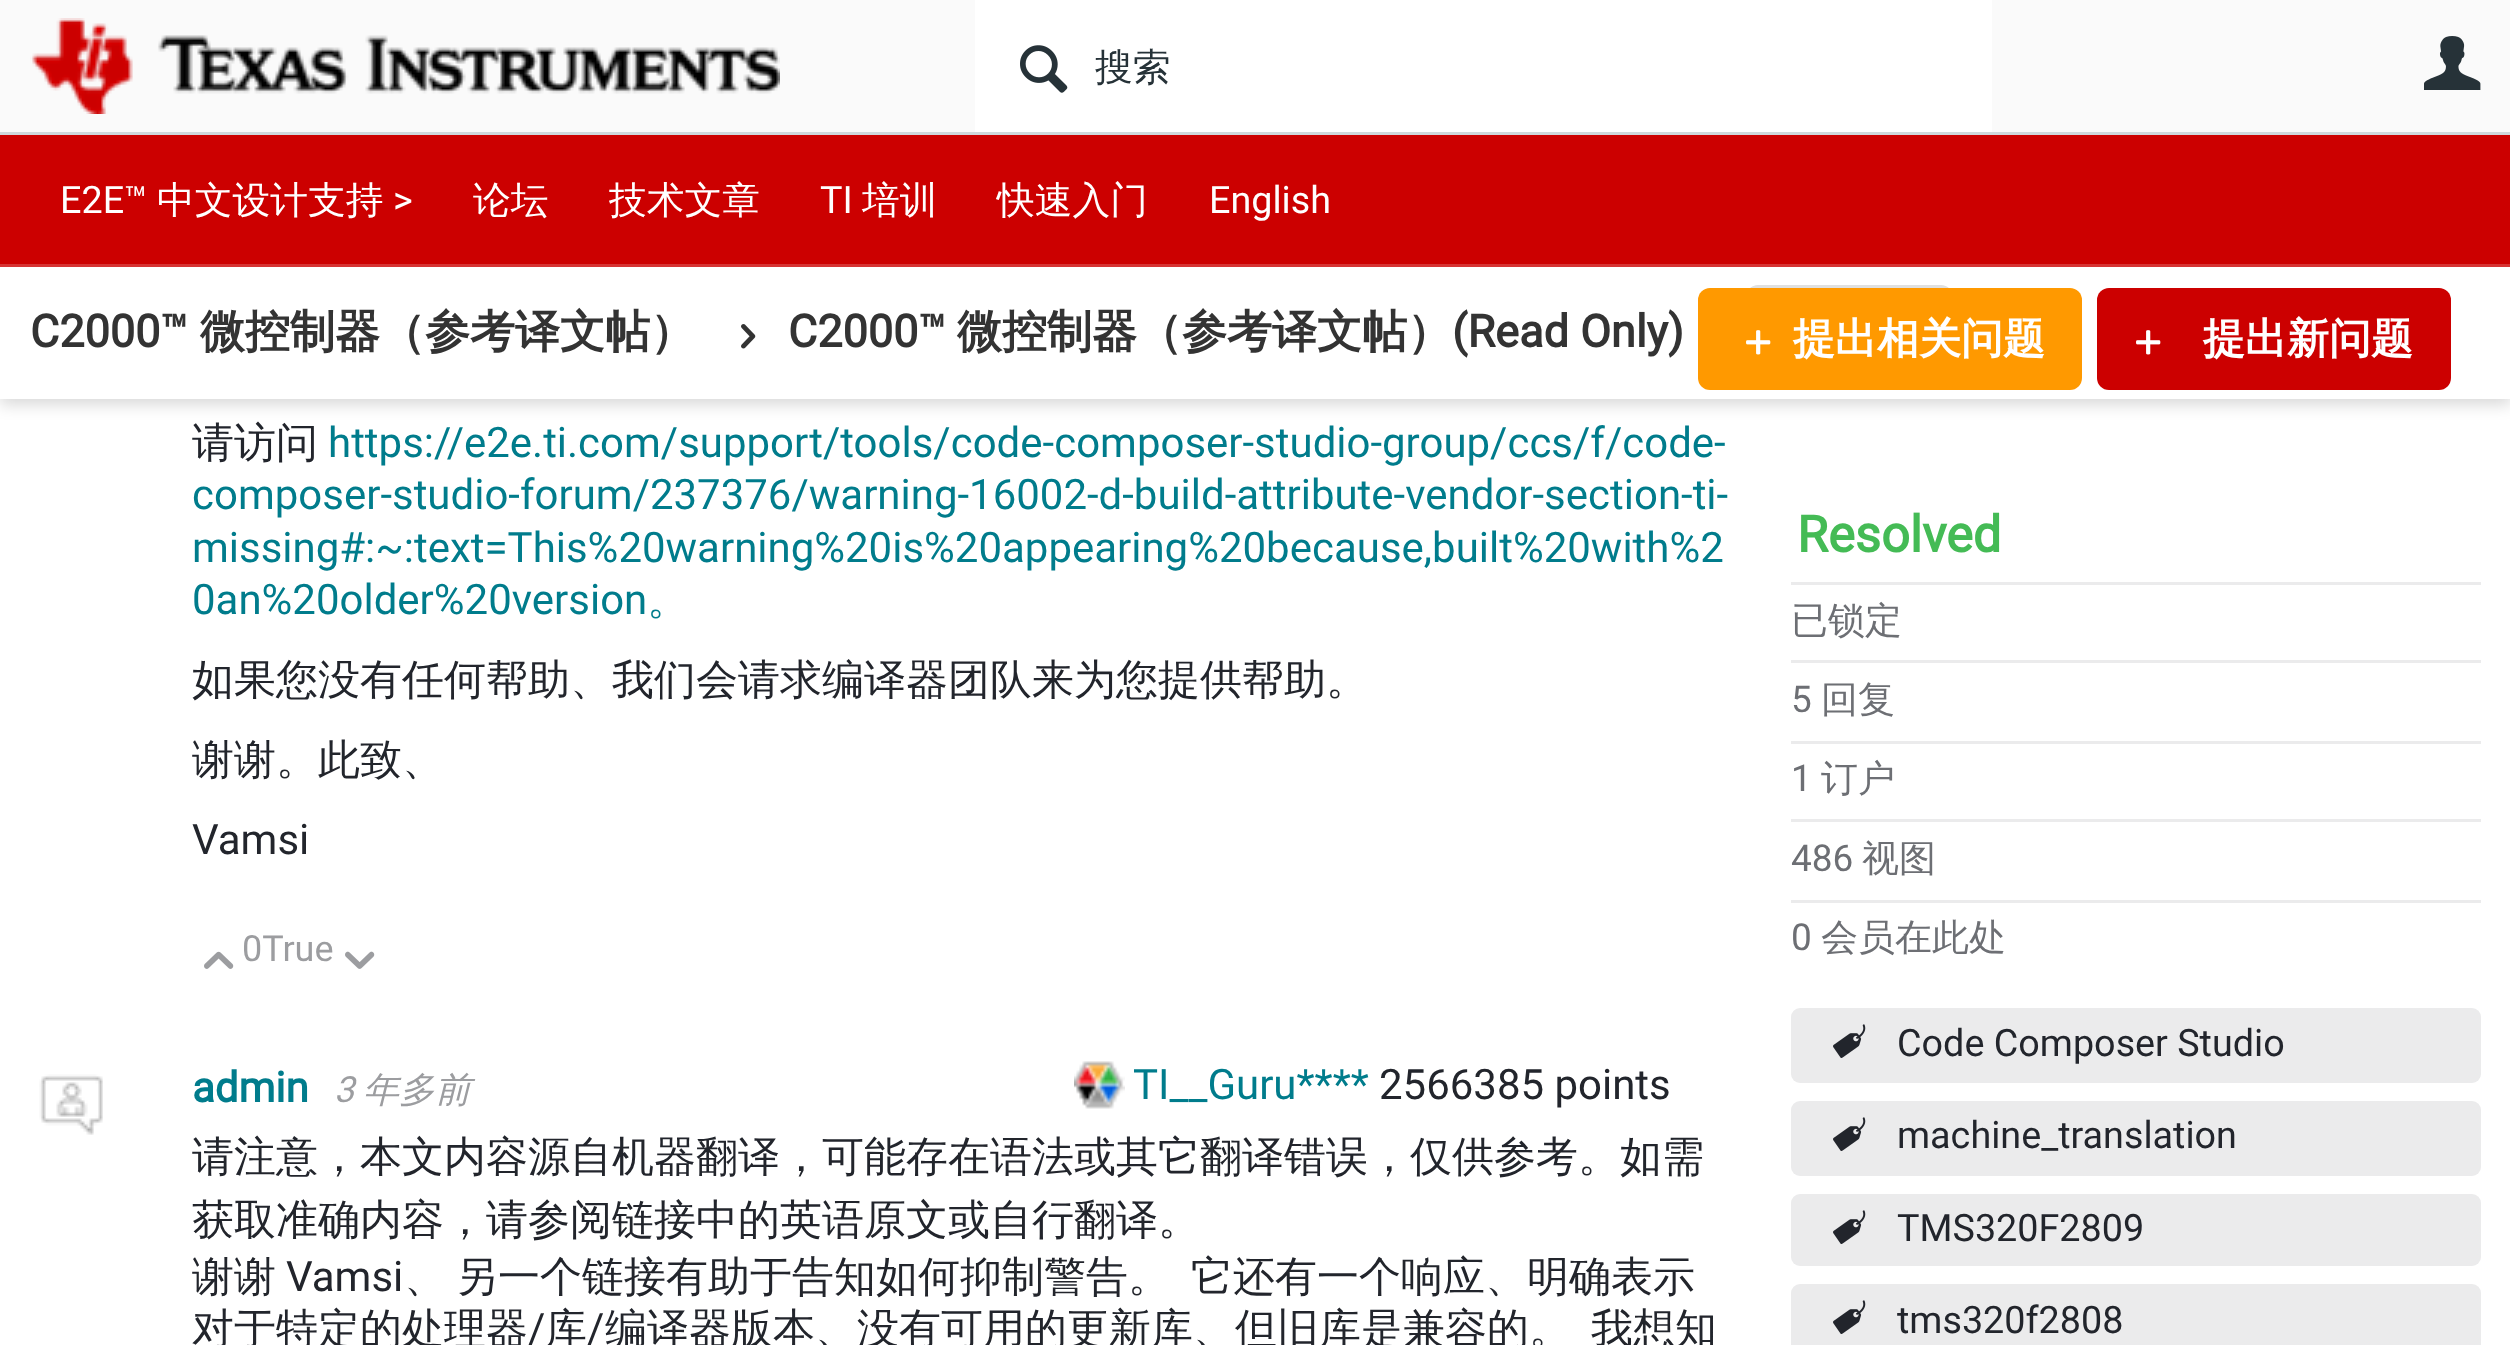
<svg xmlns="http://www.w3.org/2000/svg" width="2510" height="1345">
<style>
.a{font:500 37.75px WenQuanYi Zen Hei;fill:#263238}
.b{font:37.75px Roboto;fill:#fff}
.c{font:500 37.75px WenQuanYi Zen Hei;fill:#fff}
.d{font:bold 45px Roboto;fill:#333}
.e{font:bold 45px WenQuanYi Zen Hei;fill:#333}
.f{font:bold 42px WenQuanYi Zen Hei;fill:#fff}
.g{font:500 42px WenQuanYi Zen Hei;fill:#22252c}
.h{font:42px Roboto;fill:#007c8c}
.i{font:500 42px WenQuanYi Zen Hei;fill:#007c8c}
.j{font:42px Roboto;fill:#22252c}
.k{font:36px Roboto;fill:#9c9da0}
.l{font:bold 42px Roboto;fill:#007c8c}
.m{font:italic 36px Roboto;fill:#9c9da0}
.n{font:italic 500 36px WenQuanYi Zen Hei;fill:#9c9da0}
.o{font:bold 50.5px Roboto;fill:#4b5}
.p{font:500 37px WenQuanYi Zen Hei;fill:#6d6f74}
.q{font:37px Roboto;fill:#6d6f74}
.r{font:37.75px Roboto;fill:#22252c}
</style>
<rect width="100%" height="100%" fill="#fff"/>
<path fill="#00000026" filter="blur(7.5px)" d="M0 6h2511v399H0z"/>
<path fill="#fff" d="M0 267h2510v132H0z"/>
<path fill="#fafafa" d="M0 0h2510v132H0z"/>
<path fill="#cfd8dc" d="M0 132h2510v3H0z"/>
<image href="1.png" x="30" y="18" width="750" height="96"/>
<path fill="#fff" d="M975 0h1017v132H975z"/>
<image href="2.png" x="1020" y="45" width="48" height="48"/>
<image href="3.png" x="2424" y="36" width="57" height="54"/>
<path fill="#c00" d="M0 135h2510v129H0z"/>
<path fill="#d63333" d="M0 264h2510v3H0z"/>
<image href="4.png" x="741" y="324" width="15" height="25"/>
<rect fill="#e0e0e0" x="1746" y="285" width="207" height="99" rx="12"/>
<rect fill="#f90" x="1698" y="288" width="384" height="102" rx="12"/>
<image href="5.png" x="1746" y="330" width="25" height="25"/>
<rect fill="#c00" x="2097" y="288" width="354" height="102" rx="12"/>
<image href="6.png" x="2136" y="330" width="25" height="25"/>
<image href="7.png" x="204" y="951" width="30" height="18"/>
<image href="8.png" x="345" y="951" width="30" height="18"/>
<image href="9.png" x="39" y="1074" width="64" height="61"/>
<image href="10.png" x="1074" y="1061" width="51" height="48"/>
<path fill="#ebebec" d="M1791 582h690v3H1791z"/>
<path fill="#ebebec" d="M1791 660h690v3H1791z"/>
<path fill="#ebebec" d="M1791 741h690v3H1791z"/>
<path fill="#ebebec" d="M1791 819h690v3H1791z"/>
<path fill="#ebebec" d="M1791 900h690v3H1791z"/>
<rect fill="#ebebec" x="1791" y="1008" width="690" height="75" rx="9"/>
<image href="11.png" x="1833" y="1024" width="33" height="34"/>
<rect fill="#ebebec" x="1791" y="1101" width="690" height="75" rx="9"/>
<image href="11.png" x="1833" y="1117" width="33" height="34"/>
<rect fill="#ebebec" x="1791" y="1194" width="690" height="72" rx="9"/>
<image href="11.png" x="1833" y="1210" width="33" height="34"/>
<rect fill="#ebebec" x="1791" y="1284" width="690" height="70" rx="9"/>
<image href="11.png" x="1833" y="1300" width="33" height="34"/>
<text class="a" x="1095" y="80">搜索</text>
<text class="b" x="60" y="213">E2E™</text>
<text class="c" x="157" y="213">中文设计支持</text>
<text class="b" x="393" y="213">&gt;</text>
<text class="c" x="473" y="213">论坛</text>
<text class="c" x="609" y="213">技术文章</text>
<text class="b" x="820" y="213">TI</text>
<text class="c" x="862" y="213">培训</text>
<text class="c" x="997" y="213">快速入门</text>
<text class="b" x="1209" y="213">English</text>
<text class="d" x="30" y="347">C2000™︎</text>
<text class="e" x="200" y="347">微控制器（参考译文帖）</text>
<text class="d" x="788" y="347">C2000™︎</text>
<text class="e" x="957" y="347">微控制器（参考译文帖）</text>
<text class="d" x="1452" y="347">(Read Only)</text>
<text class="f" x="1793" y="353">提出相关问题</text>
<text class="f" x="2203" y="353">提出新问题</text>
<text class="g" x="192" y="457">请访问</text>
<text class="h" x="328" y="457">https://e2e.ti.com/support/tools/code-composer-studio-group/ccs/f/code-</text>
<text class="h" x="192" y="509">composer-studio-forum/237376/warning-16002-d-build-attribute-vendor-section-ti-</text>
<text class="h" x="192" y="562">missing#:~:text=This%20warning%20is%20appearing%20because,built%20with%2</text>
<text class="h" x="192" y="614">0an%20older%20version</text>
<text class="i" x="647" y="614">。</text>
<text class="g" x="192" y="694">如果您没有任何帮助、我们会请求编译器团队来为您提供帮助。</text>
<text class="g" x="192" y="774">谢谢。此致、</text>
<text class="j" x="192" y="854">Vamsi</text>
<text class="k" x="242" y="961">0True</text>
<text class="l" x="192" y="1102">admin</text>
<text class="m" x="334" y="1102">3</text>
<text class="n" x="363" y="1102">年多前</text>
<text class="h" x="1133" y="1099">TI__Guru****</text>
<text class="j" x="1379" y="1099">2566385 points</text>
<text class="g" x="192" y="1171">请注意，本文内容源自机器翻译，可能存在语法或其它翻译错误，仅供参考。如需</text>
<text class="g" x="192" y="1234">获取准确内容，请参阅链接中的英语原文或自行翻译。</text>
<text class="g" x="192" y="1291">谢谢</text>
<text class="j" x="286" y="1291">Vamsi</text>
<text class="g" x="404" y="1291">、</text>
<text class="g" x="456" y="1291">另一个链接有助于告知如何抑制警告。</text>
<text class="g" x="1191" y="1291">它还有一个响应、明确表示</text>
<text class="g" x="192" y="1343">对于特定的处理器</text>
<text class="j" x="528" y="1343">/</text>
<text class="g" x="545" y="1343">库</text>
<text class="j" x="587" y="1343">/</text>
<text class="g" x="605" y="1343">编译器版本、没有可用的更新库、但旧库是兼容的。</text>
<text class="g" x="1591" y="1343">我想知</text>
<text class="o" x="1797" y="552">Resolved</text>
<text class="p" x="1791" y="633">已锁定</text>
<text class="q" x="1791" y="712">5</text>
<text class="p" x="1821" y="712">回复</text>
<text class="q" x="1791" y="791">1</text>
<text class="p" x="1821" y="791">订户</text>
<text class="q" x="1791" y="871">486</text>
<text class="p" x="1862" y="871">视图</text>
<text class="q" x="1791" y="950">0</text>
<text class="p" x="1821" y="950">会员在此处</text>
<text class="r" x="1897" y="1056">Code Composer Studio</text>
<text class="r" x="1897" y="1148">machine_translation</text>
<text class="r" x="1897" y="1241">TMS320F2809</text>
<text class="r" x="1897" y="1333">tms320f2808</text>
</svg>
